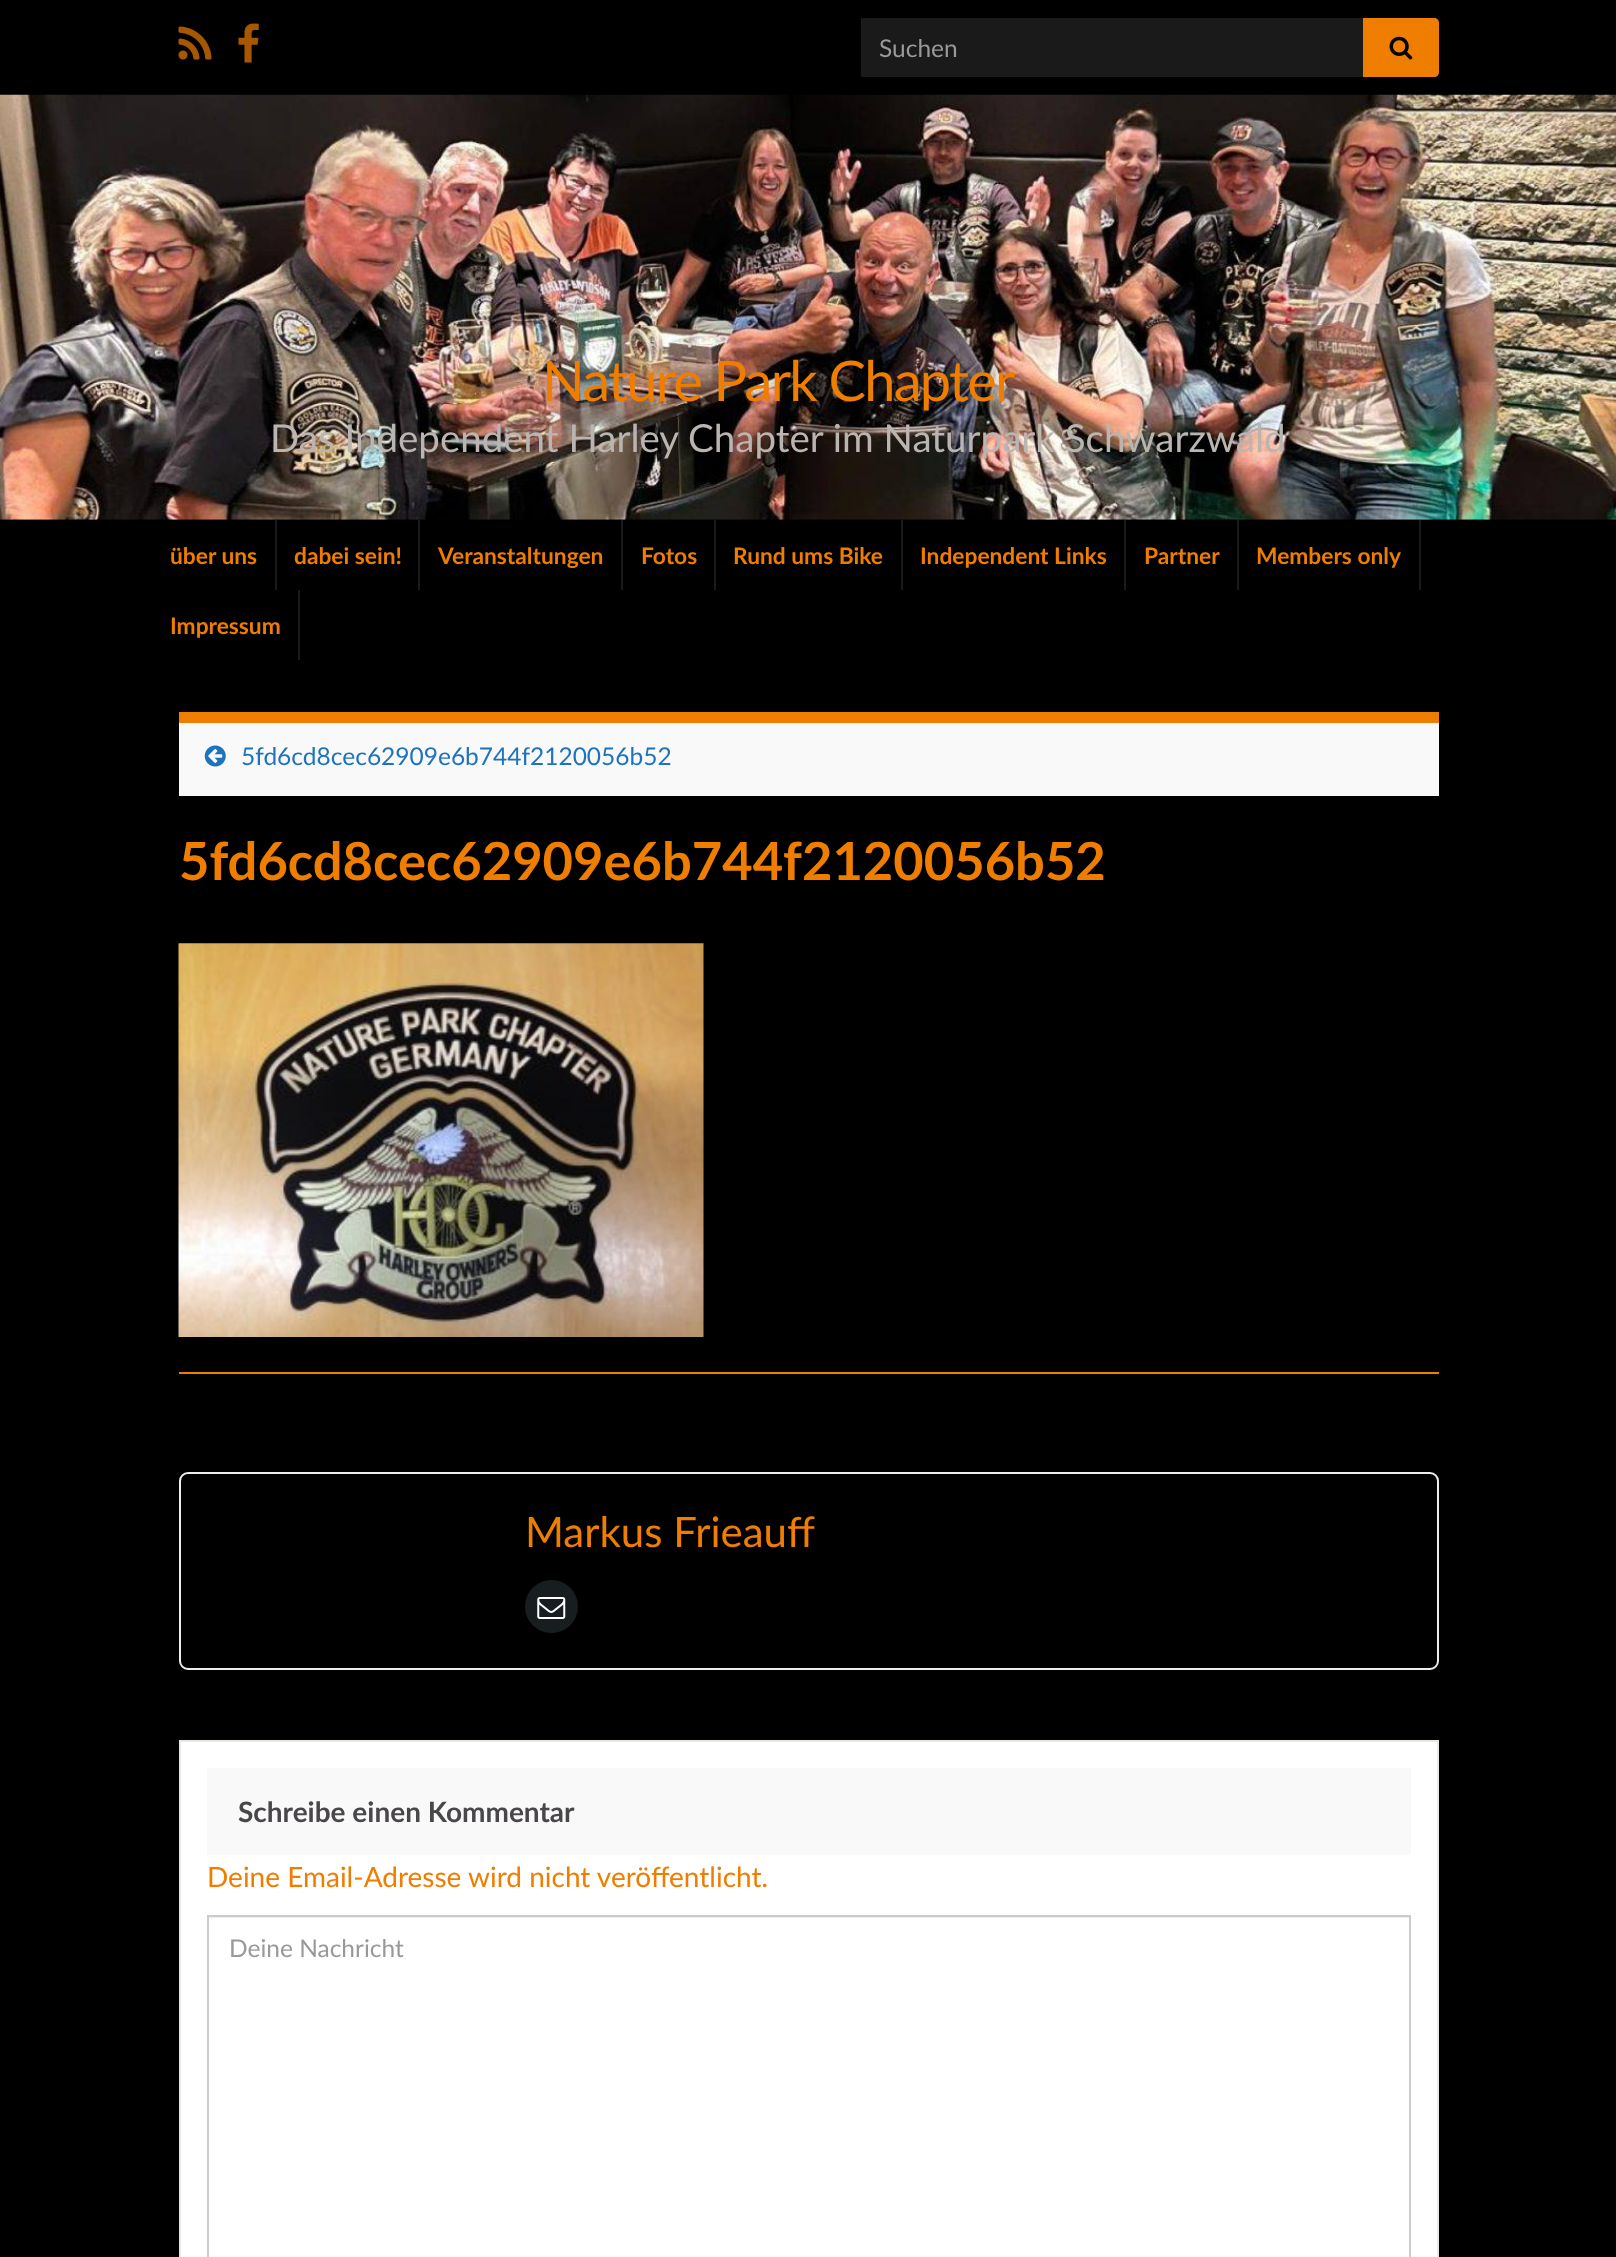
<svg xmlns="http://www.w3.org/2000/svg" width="1616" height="2257">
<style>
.a{font:24.5px Lato;fill:#999}
.b{font:56px Lato;letter-spacing:-1.75px;fill:#ef7d00}
.c{font:38.5px Lato;fill:#bbb5b2}
.d{font:bold 22.75px Lato;fill:#ef7d00}
.e{font:24.5px Lato;fill:#1e73be}
.f{font:bold 52.5px Lato;fill:#ef7d00}
.g{font:42px Lato;fill:#ef7d00}
.h{font:bold 28px Lato;fill:#4a474b}
.i{font:28px Lato;fill:#ef7d00}
</style>
<rect width="100%" height="100%" fill="#000"/>
<image href="1.png" x="178" y="26" width="34" height="34"/>
<image href="2.png" x="238" y="23" width="21" height="40"/>
<path fill="#1a1a1a" d="M861 18h502v59H861z"/>
<path fill="#ef7d00" d="M1363 18h71c3 0 5 2 5 5v49c0 3-2 5-5 5h-71z"/>
<image href="3.png" x="1389" y="36" width="24" height="24"/>
<image href="4.png" x="0" y="94" width="1616" height="426"/>
<path fill="#1a1a1a" d="M275 520h2v70H275z"/>
<path fill="#1a1a1a" d="M418 520h2v70H418z"/>
<path fill="#1a1a1a" d="M621 520h2v70H621z"/>
<path fill="#1a1a1a" d="M714 520h2v70H714z"/>
<path fill="#1a1a1a" d="M901 520h2v70H901z"/>
<path fill="#1a1a1a" d="M1124 520h2v70H1124z"/>
<path fill="#1a1a1a" d="M1237 520h2v70H1237z"/>
<path fill="#1a1a1a" d="M1419 520h2v70H1419z"/>
<path fill="#1a1a1a" d="M298 590h2v70H298z"/>
<path fill="#f9f9f9" d="M179 723h1260v73H179z"/>
<path fill="#ef7d00" d="M179 712h1260v11H179z"/>
<image href="5.png" x="204" y="745" width="22" height="22"/>
<image href="6.png" x="178" y="943" width="526" height="394"/>
<path fill="#ef7d00" d="M179 1372h1260v2H179z"/>
<rect fill="none" stroke="#ebedf0" stroke-width="2" x="180" y="1473" width="1258" height="196" rx="8"/>
<circle fill="#181e1f" cx="551.5" cy="1606.5" r="26.5"/>
<image href="7.png" x="537" y="1597" width="29" height="22"/>
<path fill="#fff" stroke="#e9e8e3" stroke-width="2" d="M180 1741h1258v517H180z"/>
<path fill="#f9f9f9" d="M207 1768h1204v87H207z"/>
<path fill="#ececec" d="M208 1917h1201v1H208z"/>
<path fill="none" stroke="#ccc" stroke-width="2" d="M208 1916h1202v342H208z"/>
<text class="a" x="879" y="57">Suchen</text>
<text class="b" x="542" y="401">Nature Park Chapter</text>
<text class="c" x="270" y="452">Das Independent Harley Chapter im Naturpark Schwarzwald</text>
<text class="d" x="170" y="564">über uns</text>
<text class="d" x="294" y="564">dabei sein!</text>
<text class="d" x="438" y="564">Veranstaltungen</text>
<text class="d" x="641" y="564">Fotos</text>
<text class="d" x="733" y="564">Rund ums Bike</text>
<text class="d" x="920" y="564">Independent Links</text>
<text class="d" x="1144" y="564">Partner</text>
<text class="d" x="1256" y="564">Members only</text>
<text class="d" x="170" y="634">Impressum</text>
<text class="e" x="241" y="765">5fd6cd8cec62909e6b744f2120056b52</text>
<text class="f" x="179" y="880">5fd6cd8cec62909e6b744f2120056b52</text>
<text class="g" x="525" y="1547">Markus Frieauff</text>
<text class="h" x="238" y="1822">Schreibe einen Kommentar</text>
<text class="i" x="207" y="1887">Deine Email-Adresse wird nicht veröffentlicht.</text>
<text class="a" x="229" y="1957">Deine Nachricht</text>
</svg>
